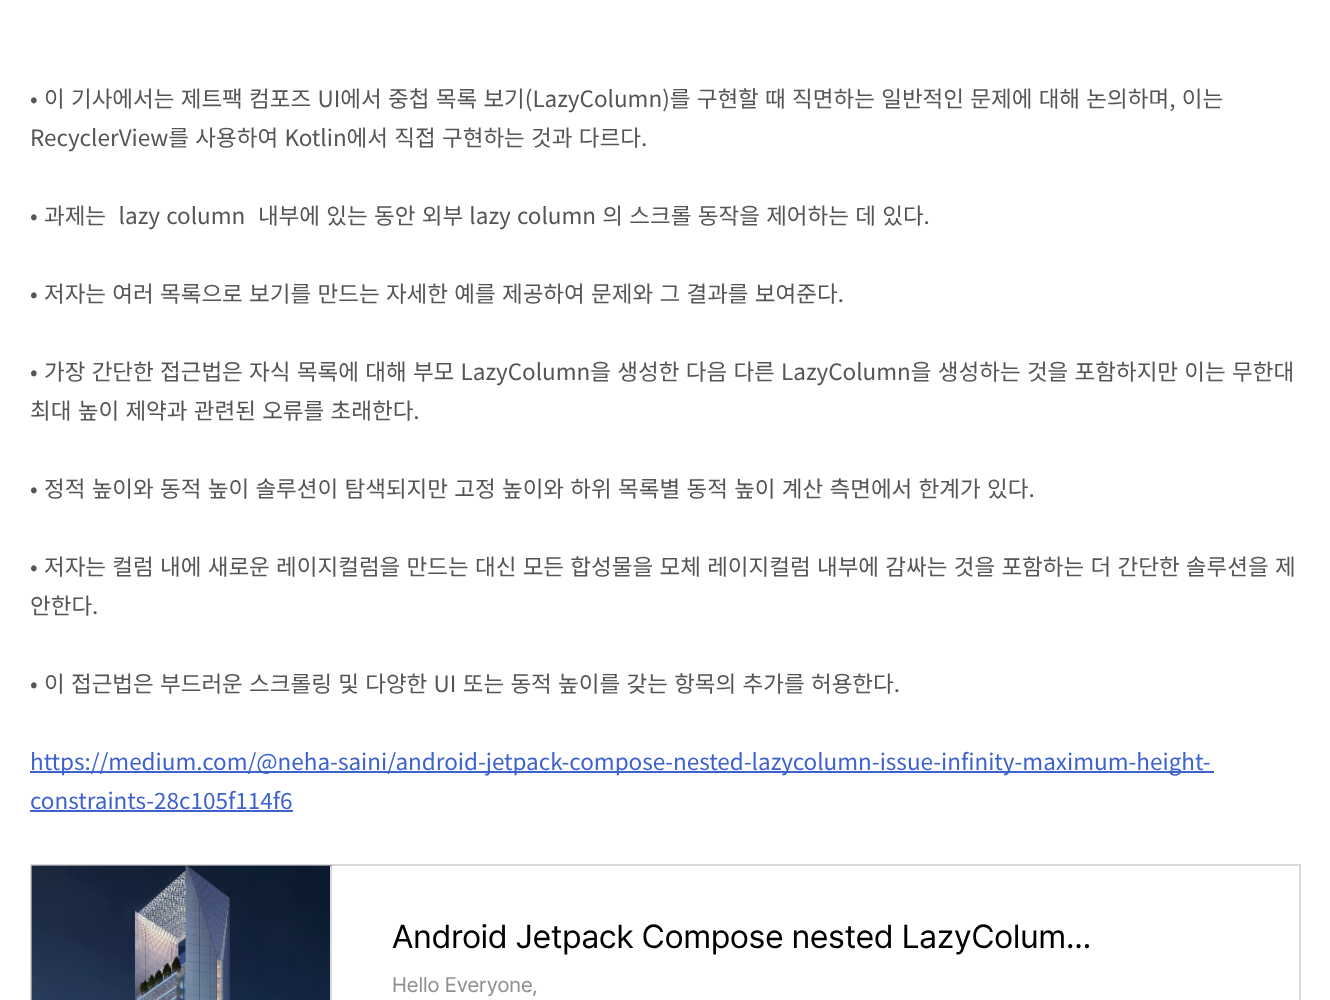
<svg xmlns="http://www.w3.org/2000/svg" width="1330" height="1000">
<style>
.a{font:22.5px Noto Sans KR;fill:#555}
.b{font:22.5px Noto Sans KR;fill:#3d62ce}
.c{font:33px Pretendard;fill:#000}
.d{font:21px Pretendard;fill:#909090}
</style>
<defs>
<clipPath id="clip1"><path d="M392 972h838v24H392z"/></clipPath>
</defs>
<rect width="100%" height="100%" fill="#fff"/>
<path fill="#3d62ce" d="M30 771h1184v2H30z"/>
<path fill="#3d62ce" d="M30 810h263v2H30z"/>
<path fill="none" stroke="#d9d9d9" stroke-width="2" d="M31 865h1269v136H31z"/>
<image href="2.png" x="31" y="865" width="299" height="135"/>
<image href="1.png" x="31" y="865" width="301" height="135"/>
<path fill="#d9d9d9" d="M330 866h2v134H330z"/>
<text class="a" x="30" y="107" word-spacing="1.25">• 이 기사에서는 제트팩 컴포즈 UI에서 중첩 목록 보기(LazyColumn)를 구현할 때 직면하는 일반적인 문제에 대해 논의하며, 이는</text>
<text class="a" x="30" y="146" word-spacing="1.25">RecyclerView를 사용하여 Kotlin에서 직접 구현하는 것과 다르다.</text>
<text class="a" xml:space="preserve" x="30" y="224" word-spacing="1.25">• 과제는  lazy column  내부에 있는 동안 외부 lazy column 의 스크롤 동작을 제어하는 데 있다.</text>
<text class="a" x="30" y="302" word-spacing="1.25">• 저자는 여러 목록으로 보기를 만드는 자세한 예를 제공하여 문제와 그 결과를 보여준다.</text>
<text class="a" x="30" y="380" word-spacing="1.25">• 가장 간단한 접근법은 자식 목록에 대해 부모 LazyColumn을 생성한 다음 다른 LazyColumn을 생성하는 것을 포함하지만 이는 무한대</text>
<text class="a" x="30" y="419" word-spacing="1.25">최대 높이 제약과 관련된 오류를 초래한다.</text>
<text class="a" x="30" y="497" word-spacing="1.25">• 정적 높이와 동적 높이 솔루션이 탐색되지만 고정 높이와 하위 목록별 동적 높이 계산 측면에서 한계가 있다.</text>
<text class="a" x="30" y="575" word-spacing="1.25">• 저자는 컬럼 내에 새로운 레이지컬럼을 만드는 대신 모든 합성물을 모체 레이지컬럼 내부에 감싸는 것을 포함하는 더 간단한 솔루션을 제</text>
<text class="a" x="30" y="614">안한다.</text>
<text class="a" x="30" y="692" word-spacing="1.25">• 이 접근법은 부드러운 스크롤링 및 다양한 UI 또는 동적 높이를 갖는 항목의 추가를 허용한다.</text>
<text class="b" x="30" y="770">https://medium.com/@neha-saini/android-jetpack-compose-nested-lazycolumn-issue-infinity-maximum-height-</text>
<text class="b" x="30" y="809">constraints-28c105f114f6</text>
<text class="c" x="392" y="948">Android Jetpack Compose nested LazyColum…</text>
<g clip-path="url(#clip1)">
<text class="d" x="392" y="992">Hello Everyone,</text>
</g>
</svg>
